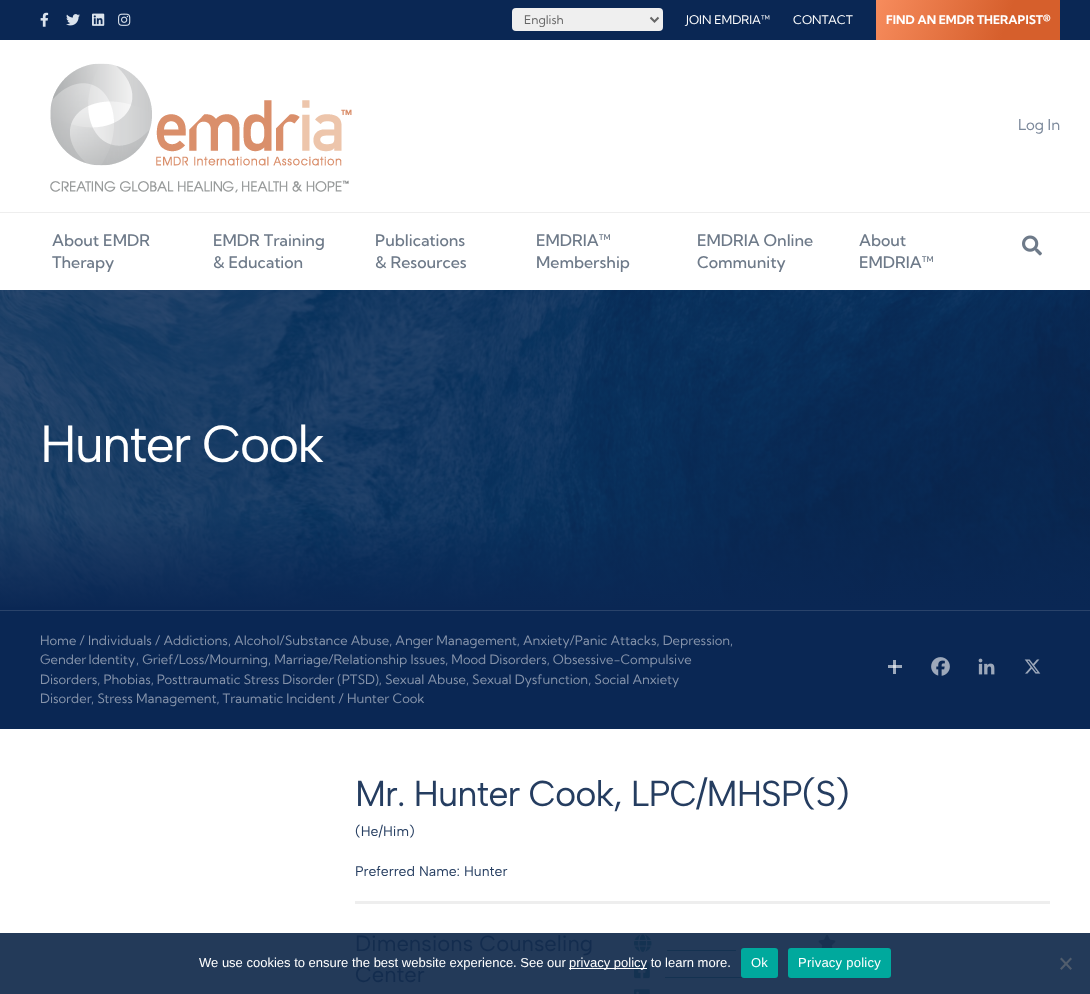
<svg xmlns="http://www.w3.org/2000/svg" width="1090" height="994">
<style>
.a{font:12px Kumbh Sans;fill:#666}
.b{font:12px Kumbh Sans;fill:#fff}
.c{font:bold 12px Kumbh Sans;fill:#fff}
.d{font:15px Kumbh Sans;fill:#7c899b}
.e{font:500 16px Kumbh Sans;fill:#6e7a89}
.f{font:52px Albert Sans;letter-spacing:-2px;fill:#fff}
.g{font:13px Kumbh Sans;fill:#8593aa}
.h{font:36px Albert Sans;letter-spacing:-1px;fill:#253d60}
.i{font:14px Albert Sans;fill:#253d60}
.j{font:22px Albert Sans;fill:#132c4e}
.k{font:13px Liberation Sans;fill:#fff}
.l{font:13px Liberation Sans;letter-spacing:0.25px;fill:#fff}
</style>
<defs>
<linearGradient id="g1" gradientUnits="userSpaceOnUse" x1="880" y1="-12" x2="1056" y2="52"><stop offset="0" stop-color="#f78c5d"/><stop offset="0.7" stop-color="#d65f2c"/></linearGradient>
<linearGradient id="g2" gradientUnits="userSpaceOnUse" x1="545" y1="610" x2="545" y2="290"><stop offset="0" stop-color="#0a2754"/><stop offset="0.3" stop-color="#0a2754" stop-opacity="0.83"/></linearGradient>
</defs>
<rect width="100%" height="100%" fill="#0a2754"/>
<image href="1.png" x="40" y="12" width="9" height="15"/>
<image href="2.png" x="66" y="14" width="14" height="12"/>
<image href="3.png" x="92" y="13" width="13" height="13"/>
<image href="4.png" x="118" y="13" width="13" height="13"/>
<rect fill="#efefef" x="512" y="8" width="151" height="23" rx="4"/>
<path fill="none" stroke="#666" stroke-width="2" d="M650.5 17.5l4 4l4-4"/>
<path fill="url(#g1)" d="M876 0h184v40H876z"/>
<path fill="#fff" d="M0 40h1090v250H0z"/>
<image href="5.png" x="50" y="63" width="302" height="130"/>
<path fill="#eee" d="M0 212h1090v1H0z"/>
<image href="6.png" x="1022" y="235" width="20" height="21"/>
<image href="7.png" x="1089" y="290" width="1" height="317"/>
<image href="8.png" x="0" y="290" width="1090" height="317"/>
<path fill="url(#g2)" d="M0 290h1090v317H0z"/>
<path fill="#9da9bb" d="M888 665h14v3H888z"/>
<path fill="#2a436a" d="M0 610h1090v1H0z"/>
<path fill="#9da9bb" d="M893 660h3v14H893z"/>
<path fill="#d8dde4" d="M893 665h3v3H893z"/>
<image href="9.png" x="931" y="657" width="19" height="19"/>
<image href="10.png" x="978" y="658" width="17" height="17"/>
<image href="11.png" x="1024" y="659" width="17" height="15"/>
<path fill="#fff" d="M0 729h1090v204H0z"/>
<path fill="#233a59" d="M0 933h1090v61H0z"/>
<path fill="#eee" d="M355 901h695v3H355z"/>
<image href="12.png" x="634" y="934" width="18" height="18"/>
<path fill="#143251" d="M667 950h69v1H667z"/>
<image href="13.png" x="634" y="962" width="16" height="17"/>
<path fill="#143251" d="M665 977h82v1H665z"/>
<image href="14.png" x="634" y="989" width="16" height="5"/>
<image href="15.png" x="818" y="935" width="18" height="13"/>
<path fill="#fff" d="M569 968h78v1H569z"/>
<rect fill="#00a99d" x="741" y="948" width="37" height="30" rx="3"/>
<rect fill="#00a99d" x="788" y="948" width="103" height="30" rx="3"/>
<path fill="#515d6d" d="M1070.5 957.5l1.5 1.5l-10.5 11l-1.5-1.5z"/>
<path fill="#515d6d" d="M1060 959l1.5-1.5l10.5 11l-1.5 1.5z"/>
<text class="a" x="524" y="24">English</text>
<text class="b" x="686" y="24">JOIN EMDRIA™</text>
<text class="b" x="793" y="24">CONTACT</text>
<text class="c" x="886" y="24">FIND AN EMDR THERAPIST®</text>
<text class="d" x="1018" y="130">Log In</text>
<text class="e" x="52" y="246">About EMDR</text>
<text class="e" x="52" y="268">Therapy</text>
<text class="e" x="213" y="246">EMDR Training</text>
<text class="e" x="213" y="268">&amp; Education</text>
<text class="e" x="375" y="246">Publications</text>
<text class="e" x="375" y="268">&amp; Resources</text>
<text class="e" x="536" y="246">EMDRIA™</text>
<text class="e" x="536" y="268">Membership</text>
<text class="e" x="697" y="246">EMDRIA Online</text>
<text class="e" x="697" y="268">Community</text>
<text class="e" x="859" y="246">About</text>
<text class="e" x="859" y="268">EMDRIA™</text>
<text class="f" x="40" y="462">Hunter Cook</text>
<text class="g" x="40" y="645">Home / Individuals / Addictions, Alcohol/Substance Abuse, Anger Management, Anxiety/Panic Attacks, Depression,</text>
<text class="g" x="40" y="664" word-spacing="-1">Gender Identity</text>
<text class="g" x="136" y="664">, Grief/Loss/Mourning, Marriage/Relationship Issues, Mood Disorders, Obsessive-Compulsive</text>
<text class="g" x="40" y="684">Disorders, Phobias, Posttraumatic Stress Disorder (PTSD), Sexual Abuse, Sexual Dysfunction, Social Anxiety</text>
<text class="g" x="40" y="703">Disorder</text>
<text class="g" x="91" y="703">, Stress Management, Traumatic Incident / Hunter Cook</text>
<text class="h" x="355" y="806">Mr. Hunter Cook, LPC/MHSP(S)</text>
<text class="i" x="355" y="836">(He/Him)</text>
<text class="i" x="355" y="876">Preferred Name: Hunter</text>
<text class="j" x="355" y="951">Dimensions Counseling</text>
<text class="j" x="355" y="982">Center</text>
<text class="k" x="199" y="967">We use cookies to ensure the best website experience. See our</text>
<text class="k" x="569" y="967">privacy policy to learn more.</text>
<text class="l" x="751" y="967">Ok</text>
<text class="l" x="798" y="967">Privacy policy</text>
</svg>
